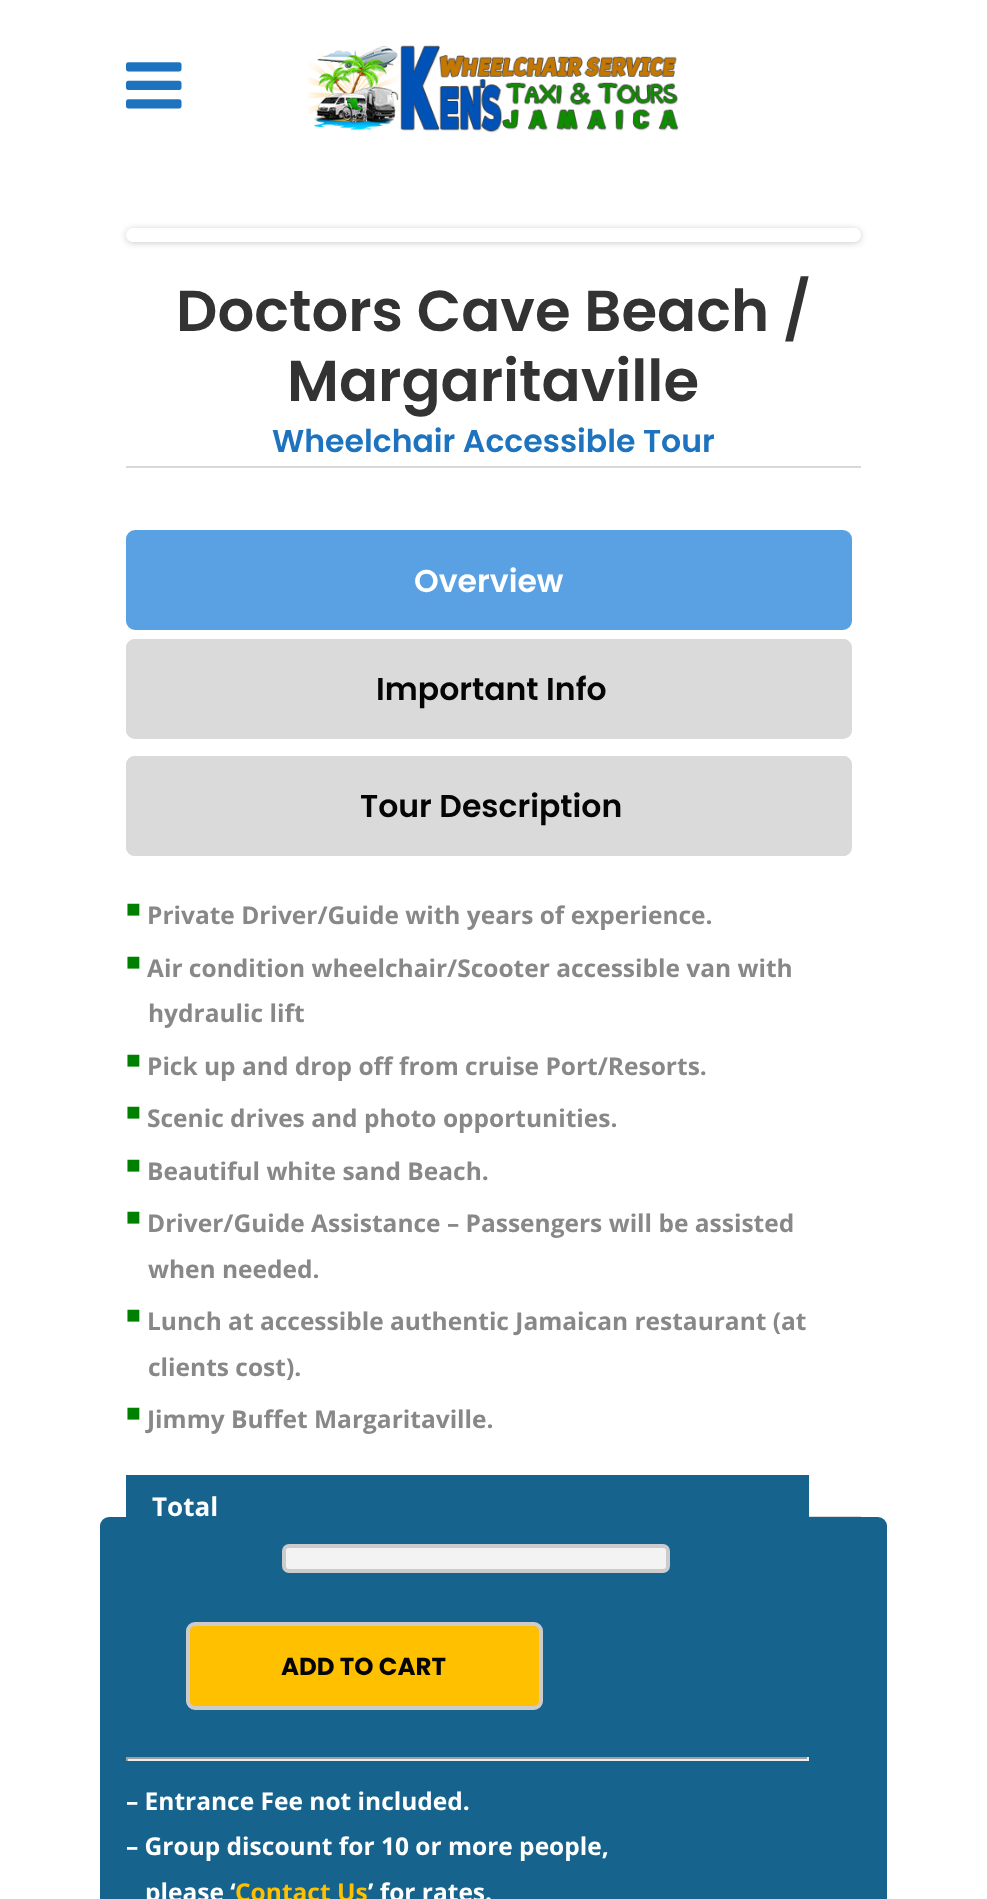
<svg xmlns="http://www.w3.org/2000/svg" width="987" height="1899">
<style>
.a{font:600 57.75px Poppins;fill:#333}
.b{font:600 31.5px Poppins;fill:#1e73be}
.c{font:600 31.5px Poppins;fill:#fff}
.d{font:600 31.5px Poppins;fill:#050505}
.e{font:bold 24.5px Liberation Sans;fill:#008000}
.f{font:bold 24.5px Open Sans;fill:#888}
.g{font:bold 26px Open Sans;fill:#fff}
.h{font:bold 24.5px Poppins;fill:#050505}
.i{font:bold 24.5px Open Sans;fill:#fff}
.j{font:bold 24.5px Open Sans;fill:#ffc000}
</style>
<rect width="100%" height="100%" fill="#fff"/>
<image href="1.png" x="126" y="62" width="56" height="47"/>
<image href="2.png" x="308" y="45" width="371" height="88"/>
<rect fill="#00000033" filter="blur(3.5px)" x="126" y="229" width="735" height="14" rx="7"/>
<rect fill="#fff" x="126" y="228" width="735" height="14" rx="7"/>
<path fill="#d9d9d9" d="M126 466h735v2H126z"/>
<path fill="#d9d9d9" d="M809 1516h52v1H809z"/>
<rect fill="#5aa1e3" stroke="#5aa1e3" stroke-width="4" x="128" y="532" width="722" height="96" rx="7"/>
<rect fill="#dadada" x="126" y="639" width="726" height="100" rx="9"/>
<path fill="#dadada" fill-rule="evenodd" d="M135 639h709c4 0 8 4 8 9v82c0 5-4 8-8 8h-709c-5 0-9-3-9-8v-82c0-5 4-9 9-9zm0 3h709c4 0 8 3 8 6v82c0 3-4 5-8 5h-709c-3 0-5-2-5-5v-82c0-3 2-6 5-6z"/>
<rect fill="#dadada" x="126" y="756" width="726" height="100" rx="9"/>
<path fill="#dadada" fill-rule="evenodd" d="M135 756h709c4 0 8 4 8 9v82c0 5-4 9-8 9h-709c-5 0-9-4-9-9v-82c0-5 4-9 9-9zm0 4h709c4 0 8 2 8 5v82c0 3-4 5-8 5h-709c-3 0-5-2-5-5v-82c0-3 2-5 5-5z"/>
<rect fill="#16638d" x="100" y="1517" width="787" height="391" rx="9"/>
<path fill="#16638d" d="M126 1475h683v42H126z"/>
<rect fill="#f3f3f3" stroke="#ccc" stroke-width="4" x="284" y="1546" width="384" height="25" rx="5"/>
<rect fill="#ffc000" stroke="#ccc" stroke-width="4" x="188" y="1624" width="353" height="84" rx="7"/>
<path fill="#9f9f9f" d="M126 1757h683v2H126z"/>
<path fill="#eee" d="M807 1757h2v4H807z"/>
<path fill="#eee" d="M126 1759h683v2H126z"/>
<path fill="#9f9f9f" d="M126 1757h2v4H126z"/>
<text class="a" x="176" y="331">Doctors Cave Beach /</text>
<text class="a" x="287" y="401">Margaritaville</text>
<text class="b" x="272" y="452">Wheelchair Accessible Tour</text>
<text class="c" x="414" y="592">Overview</text>
<text class="d" x="376" y="700">Important Info</text>
<text class="d" x="360" y="817">Tour Description</text>
<text class="e" x="126" y="917">■</text>
<text class="f" x="147" y="924">Private Driver/Guide with years of experience.</text>
<text class="e" x="126" y="970">■</text>
<text class="f" x="147" y="977">Air condition wheelchair/Scooter accessible van with</text>
<text class="f" x="148" y="1022">hydraulic lift</text>
<text class="e" x="126" y="1068">■</text>
<text class="f" x="147" y="1075">Pick up and drop off from cruise Port/Resorts.</text>
<text class="e" x="126" y="1120">■</text>
<text class="f" x="147" y="1127">Scenic drives and photo opportunities.</text>
<text class="e" x="126" y="1173">■</text>
<text class="f" x="147" y="1180">Beautiful white sand Beach.</text>
<text class="e" x="126" y="1225">■</text>
<text class="f" x="147" y="1232">Driver/Guide Assistance – Passengers will be assisted</text>
<text class="f" x="148" y="1278">when needed.</text>
<text class="e" x="126" y="1323">■</text>
<text class="f" x="147" y="1330">Lunch at accessible authentic Jamaican restaurant (at</text>
<text class="f" x="148" y="1376">clients cost).</text>
<text class="e" x="126" y="1421">■</text>
<text class="f" x="147" y="1428">Jimmy Buffet Margaritaville.</text>
<text class="g" x="152" y="1516">Total</text>
<text class="h" x="281" y="1675">ADD TO CART</text>
<text class="i" x="126" y="1810">– Entrance Fee not included.</text>
<text class="i" x="126" y="1855">– Group discount for 10 or more people,</text>
<text class="i" x="145" y="1901">please ‘</text>
<text class="j" x="235" y="1901">Contact Us</text>
<text class="i" x="368" y="1901">’ for rates.</text>
</svg>
